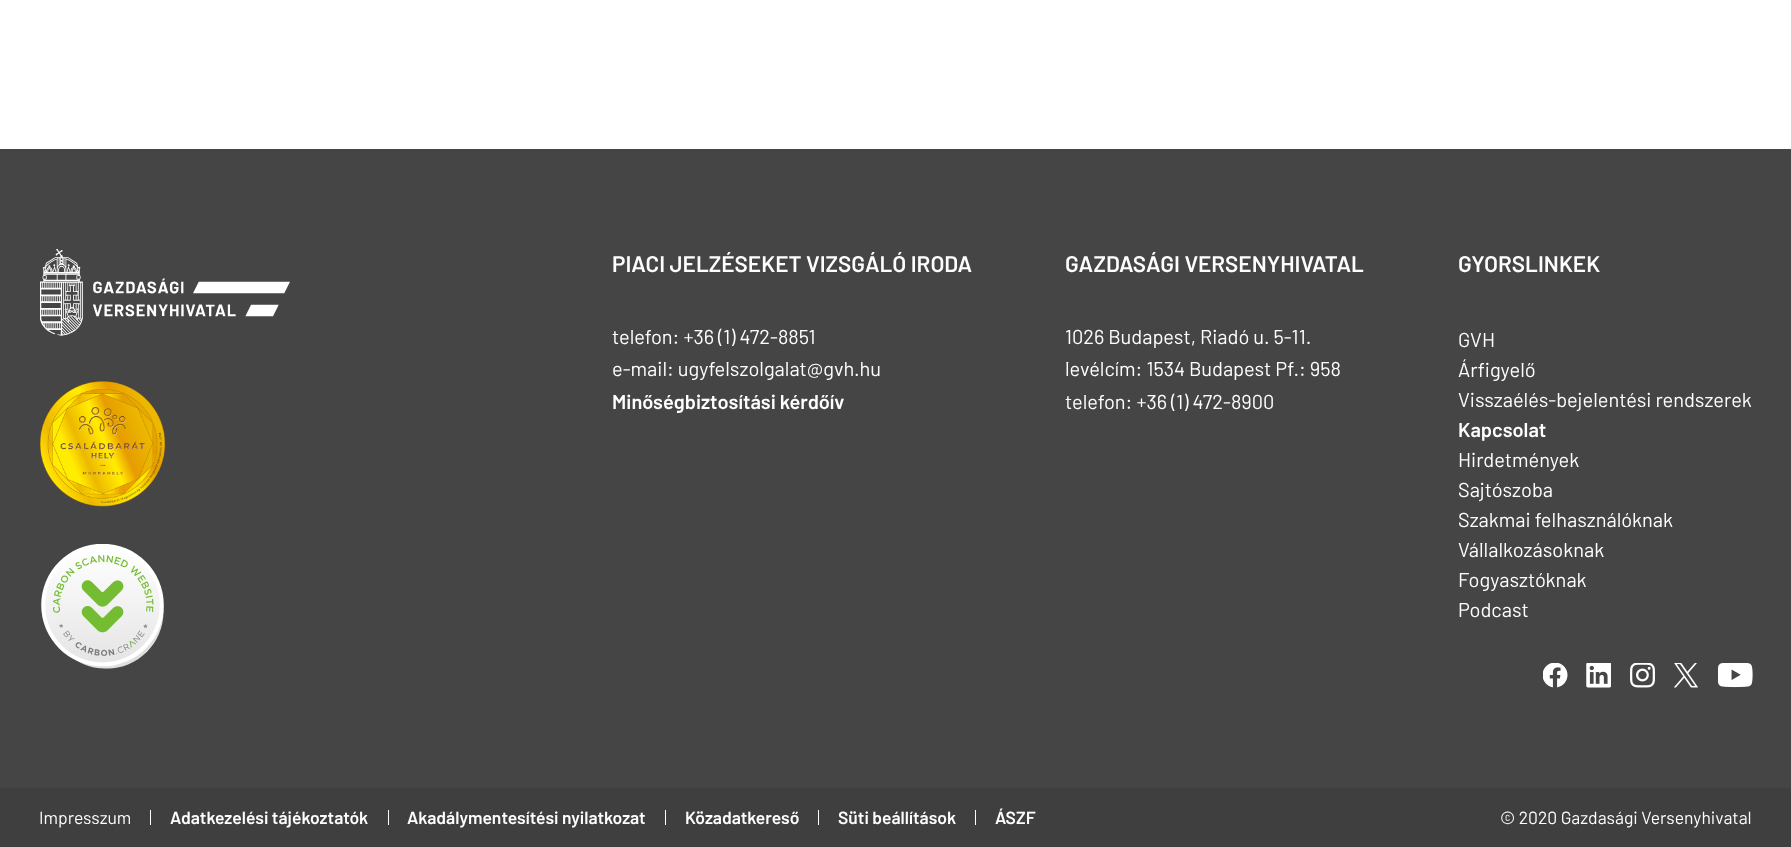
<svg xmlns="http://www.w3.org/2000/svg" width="1791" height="847">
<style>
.a{font:600 22.5px Barlow;fill:#fffefe}
.b{font:20px Barlow;fill:#fffefe}
.c{font:600 20px Barlow;fill:#fffefe}
.d{font:17.5px Barlow;fill:#fffefe}
.e{font:600 17.5px Barlow;fill:#fffefe}
</style>
<rect width="100%" height="100%" fill="#fff"/>
<path fill="#454545" d="M0 149h1791v639H0z"/>
<image href="1.png" x="40" y="249" width="250" height="87"/>
<image href="2.png" x="40" y="381" width="125" height="126"/>
<image href="3.png" x="41" y="544" width="123" height="125"/>
<image href="4.png" x="1543" y="663" width="25" height="25"/>
<image href="5.png" x="1586" y="663" width="25" height="25"/>
<image href="6.png" x="1630" y="663" width="25" height="25"/>
<image href="7.png" x="1674" y="663" width="24" height="25"/>
<image href="8.png" x="1718" y="663" width="35" height="25"/>
<path fill="#3f3f3f" d="M0 788h1791v59H0z"/>
<path fill="#fffefe" d="M150 810h1v15H150z"/>
<path fill="#fffefe" d="M388 810h1v15H388z"/>
<path fill="#fffefe" d="M665 810h1v15H665z"/>
<path fill="#fffefe" d="M818 810h1v15H818z"/>
<path fill="#fffefe" d="M975 810h1v15H975z"/>
<text class="a" x="612" y="272">PIACI JELZÉSEKET VIZSGÁLÓ IRODA</text>
<text class="b" x="612" y="344">telefon: +36 (1) 472-8851</text>
<text class="b" x="612" y="376">e-mail: ugyfelszolgalat@gvh.hu</text>
<text class="c" x="612" y="409">Minőségbiztosítási kérdőív</text>
<text class="a" x="1065" y="272">GAZDASÁGI VERSENYHIVATAL</text>
<text class="b" x="1065" y="344">1026 Budapest, Riadó u. 5-11.</text>
<text class="b" x="1065" y="376">levélcím: 1534 Budapest Pf.: 958</text>
<text class="b" x="1065" y="409">telefon: +36 (1) 472-8900</text>
<text class="a" x="1458" y="272">GYORSLINKEK</text>
<text class="b" x="1458" y="347">GVH</text>
<text class="b" x="1458" y="377">Árfigyelő</text>
<text class="b" x="1458" y="407">Visszaélés-bejelentési rendszerek</text>
<text class="c" x="1458" y="437">Kapcsolat</text>
<text class="b" x="1458" y="467">Hirdetmények</text>
<text class="b" x="1458" y="497">Sajtószoba</text>
<text class="b" x="1458" y="527">Szakmai felhasználóknak</text>
<text class="b" x="1458" y="557">Vállalkozásoknak</text>
<text class="b" x="1458" y="587">Fogyasztóknak</text>
<text class="b" x="1458" y="617">Podcast</text>
<text class="d" x="39" y="824">Impresszum</text>
<text class="e" x="170" y="824">Adatkezelési tájékoztatók</text>
<text class="e" x="407" y="824">Akadálymentesítési nyilatkozat</text>
<text class="e" x="685" y="824">Közadatkereső</text>
<text class="e" x="838" y="824">Süti beállítások</text>
<text class="e" x="995" y="824">ÁSZF</text>
<text class="d" x="1500" y="824">© 2020 Gazdasági Versenyhivatal</text>
</svg>
